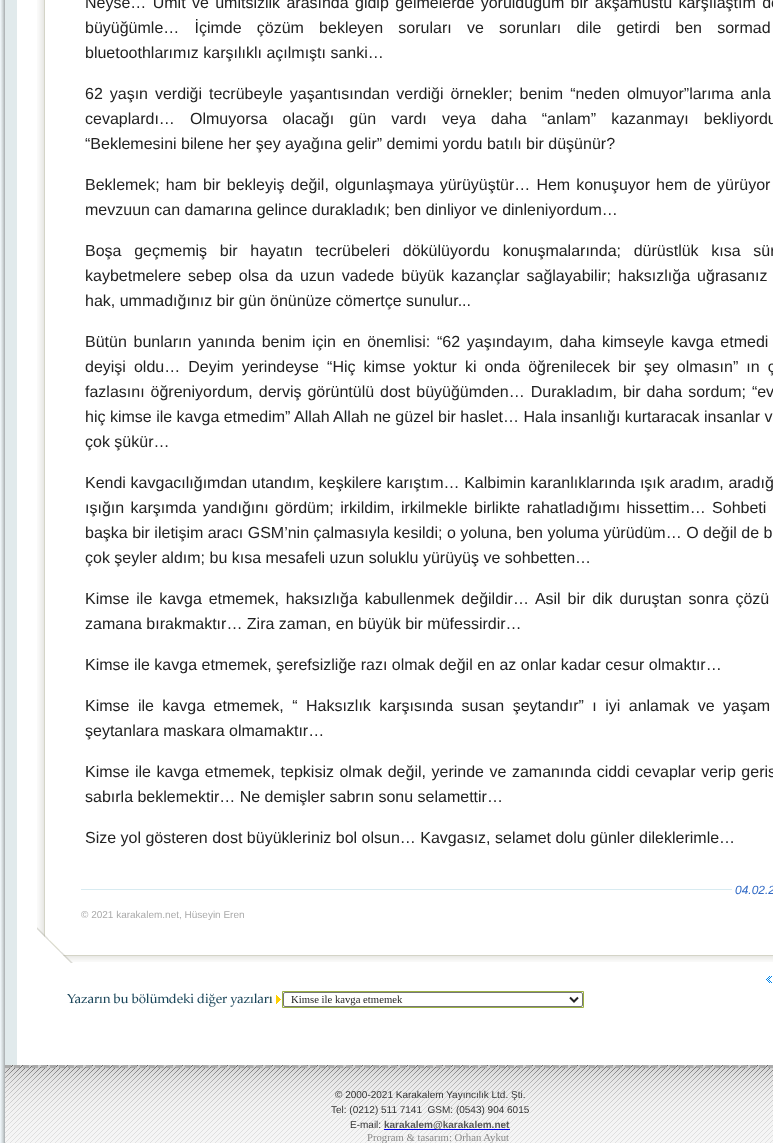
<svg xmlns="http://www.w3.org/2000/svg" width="773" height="1143">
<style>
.a{font:16px Liberation Sans;fill:#222}
.b{font:italic 12px Liberation Sans;fill:#316ac5}
.c{font:10px Liberation Sans;fill:#aaa}
.d{font:10.7px Liberation Serif;fill:#222}
.e{font:10px Liberation Sans;fill:#333}
.f{font:bold 10px Liberation Sans;fill:#555}
.g{font:10.7px Liberation Serif;fill:#888}
</style>
<rect width="100%" height="100%" fill="#fff"/>
<image href="1.png" x="0" y="0" width="5" height="1143"/>
<path fill="#e1eaec" d="M5 0h12v1065H5z"/>
<image href="2.png" x="37" y="0" width="8" height="927"/>
<image href="3.png" x="37" y="927" width="36" height="36"/>
<path fill="#d8ebf1" d="M81 889h651v1H81z"/>
<image href="4.png" x="73" y="955" width="700" height="7"/>
<image href="5.png" x="766" y="976" width="6" height="7"/>
<image href="6.png" x="67" y="993" width="214" height="14"/>
<path fill="none" stroke="#9bb141" d="M282.5 991.5h301v16H282.5z"/>
<rect fill="none" stroke="#767676" x="283.5" y="992.5" width="299" height="14" rx="1.5"/>
<path fill="none" stroke="#222" stroke-width="2" d="M570 997.5l4 4l4-4"/>
<image href="7.png" x="5" y="1065" width="768" height="78"/>
<path fill="none" stroke="#aaa" stroke-width="3" stroke-dasharray="6 2.98" d="M5 1066.5h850"/>
<path fill="#00e" d="M384 1129h126v1H384z"/>
<text class="a" x="85" y="8" word-spacing="1.9">Neyse… Ümit ve ümitsizlik arasında gidip gelmelerde yorulduğum bir akşamüstü karşılaştım do</text>
<text class="a" x="85" y="33" word-spacing="10.75">büyüğümle… İçimde çözüm bekleyen soruları ve sorunları dile getirdi ben sormad</text>
<text class="a" x="85" y="58">bluetoothlarımız karşılıklı açılmıştı sanki…</text>
<text class="a" x="85" y="99" word-spacing="2.5">62 yaşın verdiği tecrübeyle yaşantısından verdiği örnekler; benim “neden olmuyor”larıma anla</text>
<text class="a" x="85" y="124" word-spacing="10.75">cevaplardı… Olmuyorsa olacağı gün vardı veya daha “anlam” kazanmayı bekliyordu</text>
<text class="a" x="85" y="149">“Beklemesini bilene her şey ayağına gelir” demimi yordu batılı bir düşünür?</text>
<text class="a" x="85" y="190" word-spacing="1.6">Beklemek; ham bir bekleyiş değil, olgunlaşmaya yürüyüştür… Hem konuşuyor hem de yürüyor</text>
<text class="a" x="85" y="215">mevzuun can damarına gelince durakladık; ben dinliyor ve dinleniyordum…</text>
<text class="a" x="85" y="256" word-spacing="8.25">Boşa geçmemiş bir hayatın tecrübeleri dökülüyordu konuşmalarında; dürüstlük kısa sür</text>
<text class="a" x="85" y="281" word-spacing="2.6">kaybetmelere sebep olsa da uzun vadede büyük kazançlar sağlayabilir; haksızlığa uğrasanız</text>
<text class="a" x="85" y="306">hak, ummadığınız bir gün önünüze cömertçe sunulur...</text>
<text class="a" x="85" y="347" word-spacing="2.25">Bütün bunların yanında benim için en önemlisi: “62 yaşındayım, daha kimseyle kavga etmedi</text>
<text class="a" x="85" y="372" word-spacing="3.6">deyişi oldu… Deyim yerindeyse “Hiç kimse yoktur ki onda öğrenilecek bir şey olmasın” ın ç</text>
<text class="a" x="85" y="397" word-spacing="1.5">fazlasını öğreniyordum, derviş görüntülü dost büyüğümden… Durakladım, bir daha sordum; “ev</text>
<text class="a" x="85" y="422">hiç kimse ile kavga etmedim” Allah Allah ne güzel bir haslet… Hala insanlığı kurtaracak insanlar v</text>
<text class="a" x="85" y="447">çok şükür…</text>
<text class="a" x="85" y="488" word-spacing="0.25">Kendi kavgacılığımdan utandım, keşkilere karıştım… Kalbimin karanlıklarında ışık aradım, aradığ</text>
<text class="a" x="85" y="513" word-spacing="2">ışığın karşımda yandığını gördüm; irkildim, irkilmekle birlikte rahatladığımı hissettim… Sohbeti</text>
<text class="a" x="85" y="538">başka bir iletişim aracı GSM’nin çalmasıyla kesildi; o yoluna, ben yoluma yürüdüm… O değil de b</text>
<text class="a" x="85" y="563">çok şeyler aldım; bu kısa mesafeli uzun soluklu yürüyüş ve sohbetten…</text>
<text class="a" x="85" y="604" word-spacing="2.4">Kimse ile kavga etmemek, haksızlığa kabullenmek değildir… Asil bir dik duruştan sonra çözü</text>
<text class="a" x="85" y="629">zamana bırakmaktır… Zira zaman, en büyük bir müfessirdir…</text>
<text class="a" x="85" y="670">Kimse ile kavga etmemek, şerefsizliğe razı olmak değil en az onlar kadar cesur olmaktır…</text>
<text class="a" x="85" y="711" word-spacing="4">Kimse ile kavga etmemek, “ Haksızlık karşısında susan şeytandır” ı iyi anlamak ve yaşam</text>
<text class="a" x="85" y="736">şeytanlara maskara olmamaktır…</text>
<text class="a" x="85" y="777" word-spacing="1.1">Kimse ile kavga etmemek, tepkisiz olmak değil, yerinde ve zamanında ciddi cevaplar verip geris</text>
<text class="a" x="85" y="802">sabırla beklemektir… Ne demişler sabrın sonu selamettir…</text>
<text class="a" x="85" y="843">Size yol gösteren dost büyükleriniz bol olsun… Kavgasız, selamet dolu günler dileklerimle…</text>
<text class="b" x="735" y="894">04.02.2</text>
<text class="c" x="81" y="918">© 2021 karakalem.net, Hüseyin Eren</text>
<text class="d" x="291" y="1003">Kimse ile kavga etmemek</text>
<text class="e" x="335" y="1098">© 2000-2021 Karakalem Yayıncılık Ltd. Şti.</text>
<text class="e" xml:space="preserve" x="331" y="1113">Tel: (0212) 511 7141  GSM: (0543) 904 6015</text>
<text class="e" x="350" y="1128">E-mail:</text>
<text class="f" x="384" y="1128">karakalem@karakalem.net</text>
<text class="g" x="367" y="1141">Program &amp; tasarım: Orhan Aykut</text>
</svg>
